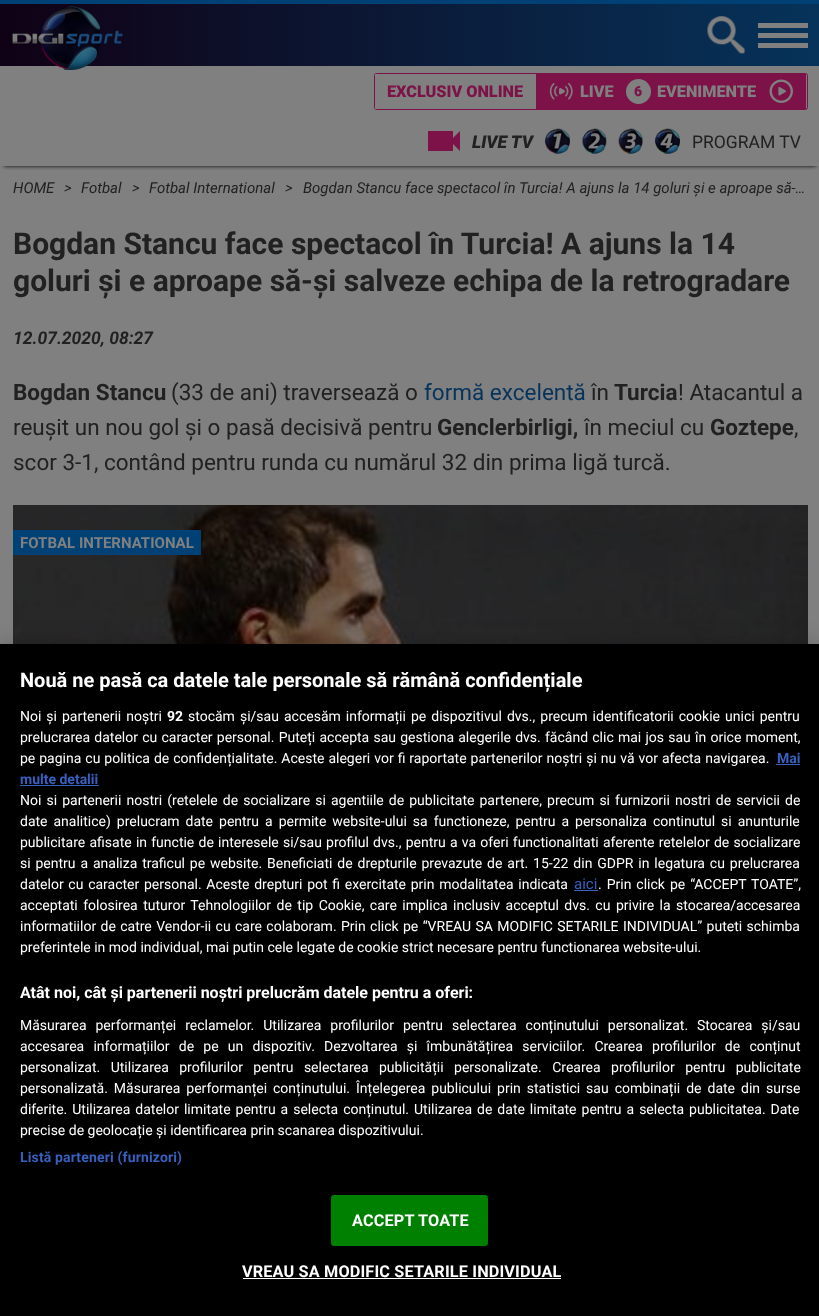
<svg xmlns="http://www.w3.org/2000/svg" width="819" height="1316">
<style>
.a{font:900 16.25px Roboto;fill:#7c1247}
.b{font:900 16.25px Roboto;fill:#808080}
.c{font:900 14px Roboto;fill:#7c1247}
.d{font:italic 900 17.5px Roboto;fill:#212121}
.e{font:17.5px Roboto;fill:#212121}
.f{font:italic 15px Roboto;fill:#212121}
.g{font:bold 30px Roboto;fill:#212121}
.h{font:italic bold 17.5px Roboto;fill:#212121}
.i{font:bold 22.5px Roboto;fill:#212121}
.j{font:22.5px Roboto;fill:#212121}
.k{font:22.5px Roboto;fill:#06335a}
.l{font:bold 15px Roboto;fill:#808080}
.m{font:bold 20px Roboto;fill:#fff}
.n{font:14px Roboto;fill:#fff}
.o{font:bold 14px Roboto;fill:#fff}
.p{font:bold 14px Roboto;fill:#3860be}
.q{font:15px Roboto;fill:#3860be}
.r{font:bold 16px Roboto;fill:#fff}
.s{font:bold 14px Roboto;letter-spacing:0.15px;fill:#3860be}
.t{font:bold 16.25px Roboto;letter-spacing:0.15px;fill:#fff}
</style>
<defs>
<linearGradient id="g1" gradientUnits="userSpaceOnUse" x1="0" y1="35" x2="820" y2="35"><stop offset="0" stop-color="#100115"/><stop offset="1" stop-color="#06335a"/></linearGradient>
<clipPath id="clip1"><path d="M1 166h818v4H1z"/></clipPath>
</defs>
<rect width="100%" height="100%" fill="#808080"/>
<path fill="#004175" d="M0 0h819v4H0z"/>
<path fill="url(#g1)" d="M0 4h819v62H0z"/>
<g clip-path="url(#clip1)">
<path fill="#000" filter="blur(2px)" d="M4 74h812v92H4z"/>
</g>
<image href="1.png" x="12" y="6" width="111" height="64"/>
<image href="2.png" x="707" y="16" width="39" height="38"/>
<path fill="#808080" d="M758 23h50v5H758z"/>
<path fill="#808080" d="M758 33h50v5H758z"/>
<path fill="#808080" d="M758 43h50v5H758z"/>
<rect fill="none" stroke="#7c1247" x="374.5" y="73.5" width="433" height="36" rx="2"/>
<path fill="#808080" d="M375 74h1v35H375z"/>
<path fill="#7c1247" d="M536 74h270v35H536z"/>
<image href="3.png" x="549" y="83" width="24" height="17"/>
<circle fill="#808080" cx="638.5" cy="91.5" r="12.5"/>
<image href="4.png" x="769" y="79" width="24" height="24"/>
<path fill="#7c1247" d="M428 131h25v20H428z"/>
<path fill="#7c1247" d="M460 131v20l-10-10z"/>
<image href="5.png" x="545" y="128" width="25" height="26"/>
<image href="6.png" x="582" y="128" width="25" height="26"/>
<image href="7.png" x="618" y="128" width="25" height="26"/>
<image href="8.png" x="655" y="128" width="25" height="26"/>
<image href="9.png" x="13" y="505" width="795" height="139"/>
<path fill="#004175" d="M13 530h188v25H13z"/>
<path fill="#00000033" filter="blur(11px)" d="M0 644h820v672H0z"/>
<path fill="#000" d="M0 644h819v672H0z"/>
<path fill="#3860be" d="M776 764h24v1H776z"/>
<path fill="#3860be" d="M20 785h79v1H20z"/>
<path fill="#3860be" d="M574 890h24v1H574z"/>
<rect fill="#008000" stroke="#008000" x="331.5" y="1195.5" width="156" height="50" rx="2"/>
<path fill="#fff" d="M243 1278h318v1H243z"/>
<text class="a" x="387" y="97">EXCLUSIV ONLINE</text>
<text class="b" x="580" y="97">LIVE</text>
<text class="c" x="634" y="96">6</text>
<text class="b" x="657" y="97">EVENIMENTE</text>
<text class="d" x="472" y="148">LIVE TV</text>
<text class="e" x="692" y="148">PROGRAM TV</text>
<text class="f" x="13" y="193">HOME</text>
<text class="f" x="64" y="193">&gt;</text>
<text class="f" x="81" y="193">Fotbal</text>
<text class="f" x="132" y="193">&gt;</text>
<text class="f" x="149" y="193">Fotbal International</text>
<text class="f" x="285" y="193">&gt;</text>
<text class="f" x="303" y="193">Bogdan Stancu face spectacol în Turcia! A ajuns la 14 goluri și e aproape să-…</text>
<text class="g" x="13" y="254">Bogdan Stancu face spectacol în Turcia! A ajuns la 14</text>
<text class="g" x="13" y="291">goluri și e aproape să-și salveze echipa de la retrogradare</text>
<text class="h" x="13" y="344">12.07.2020, 08:27</text>
<text class="i" x="13" y="400">Bogdan Stancu</text>
<text class="j" x="171" y="400">(33 de ani) traversează o</text>
<text class="k" x="424" y="400">formă excelentă</text>
<text class="j" x="591" y="400">în</text>
<text class="i" x="614" y="400">Turcia</text>
<text class="j" x="678" y="400">! Atacantul a</text>
<text class="j" x="13" y="435">reușit un nou gol și o pasă decisivă pentru</text>
<text class="i" x="437" y="435">Genclerbirligi,</text>
<text class="j" x="584" y="435">în meciul cu</text>
<text class="i" x="710" y="435">Goztepe</text>
<text class="j" x="794" y="435">,</text>
<text class="j" x="13" y="470">scor 3-1, contând pentru runda cu numărul 32 din prima ligă turcă.</text>
<text class="l" x="20" y="548">FOTBAL INTERNATIONAL</text>
<text class="m" x="20" y="687">Nouă ne pasă ca datele tale personale să rămână confidențiale</text>
<text class="n" x="20" y="721" word-spacing="1.5">Noi și partenerii noștri</text>
<text class="o" x="167" y="721">92</text>
<text class="n" x="188" y="721" word-spacing="1.6">stocăm și/sau accesăm informații pe dispozitivul dvs., precum identificatorii cookie unici pentru</text>
<text class="n" x="20" y="742" word-spacing="0.75">prelucrarea datelor cu caracter personal. Puteți accepta sau gestiona alegerile dvs. făcând clic mai jos sau în orice moment,</text>
<text class="n" x="20" y="763" word-spacing="0.5">pe pagina cu politica de confidențialitate. Aceste alegeri vor fi raportate partenerilor noștri și nu vă vor afecta navigarea.</text>
<text class="p" x="777" y="763">Mai</text>
<text class="p" x="20" y="784">multe detalii</text>
<text class="n" x="20" y="805" word-spacing="1.6">Noi si partenerii nostri (retelele de socializare si agentiile de publicitate partenere, precum si furnizorii nostri de servicii de</text>
<text class="n" x="20" y="826" word-spacing="2.5">date analitice) prelucram date pentru a permite website-ului sa functioneze, pentru a personaliza continutul si anunturile</text>
<text class="n" x="20" y="847" word-spacing="0.75">publicitare afisate in functie de interesele si/sau profilul dvs., pentru a va oferi functionalitati aferente retelelor de socializare</text>
<text class="n" x="20" y="868" word-spacing="1.4">si pentru a analiza traficul pe website. Beneficiati de drepturile prevazute de art. 15-22 din GDPR in legatura cu prelucrarea</text>
<text class="n" x="20" y="889" word-spacing="1.25">datelor cu caracter personal. Aceste drepturi pot fi exercitate prin modalitatea indicata</text>
<text class="q" x="574" y="889">aici</text>
<text class="n" x="598" y="889" word-spacing="1.5">. Prin click pe “ACCEPT TOATE”,</text>
<text class="n" x="20" y="910" word-spacing="2">acceptati folosirea tuturor Tehnologiilor de tip Cookie, care implica inclusiv acceptul dvs. cu privire la stocarea/accesarea</text>
<text class="n" x="20" y="931" word-spacing="0.9">informatiilor de catre Vendor-ii cu care colaboram. Prin click pe “VREAU SA MODIFIC SETARILE INDIVIDUAL” puteti schimba</text>
<text class="n" x="20" y="952">preferintele in mod individual, mai putin cele legate de cookie strict necesare pentru functionarea website-ului.</text>
<text class="r" x="20" y="998">Atât noi, cât și partenerii noștri prelucrăm datele pentru a oferi:</text>
<text class="n" x="20" y="1030" word-spacing="5.5">Măsurarea performanței reclamelor. Utilizarea profilurilor pentru selectarea conținutului personalizat. Stocarea și/sau</text>
<text class="n" x="20" y="1051" word-spacing="5.75">accesarea informațiilor de pe un dispozitiv. Dezvoltarea și îmbunătățirea serviciilor. Crearea profilurilor de conținut</text>
<text class="n" x="20" y="1072" word-spacing="7">personalizat. Utilizarea profilurilor pentru selectarea publicității personalizate. Crearea profilurilor pentru publicitate</text>
<text class="n" x="20" y="1093" word-spacing="2.5">personalizată. Măsurarea performanței conținutului. Înțelegerea publicului prin statistici sau combinații de date din surse</text>
<text class="n" x="20" y="1114" word-spacing="1.5">diferite. Utilizarea datelor limitate pentru a selecta conținutul. Utilizarea de date limitate pentru a selecta publicitatea. Date</text>
<text class="n" x="20" y="1135">precise de geolocație și identificarea prin scanarea dispozitivului.</text>
<text class="s" x="20" y="1162">Listă parteneri (furnizori)</text>
<text class="t" x="352" y="1226">ACCEPT TOATE</text>
<text class="t" x="242" y="1277">VREAU SA MODIFIC SETARILE INDIVIDUAL</text>
</svg>
